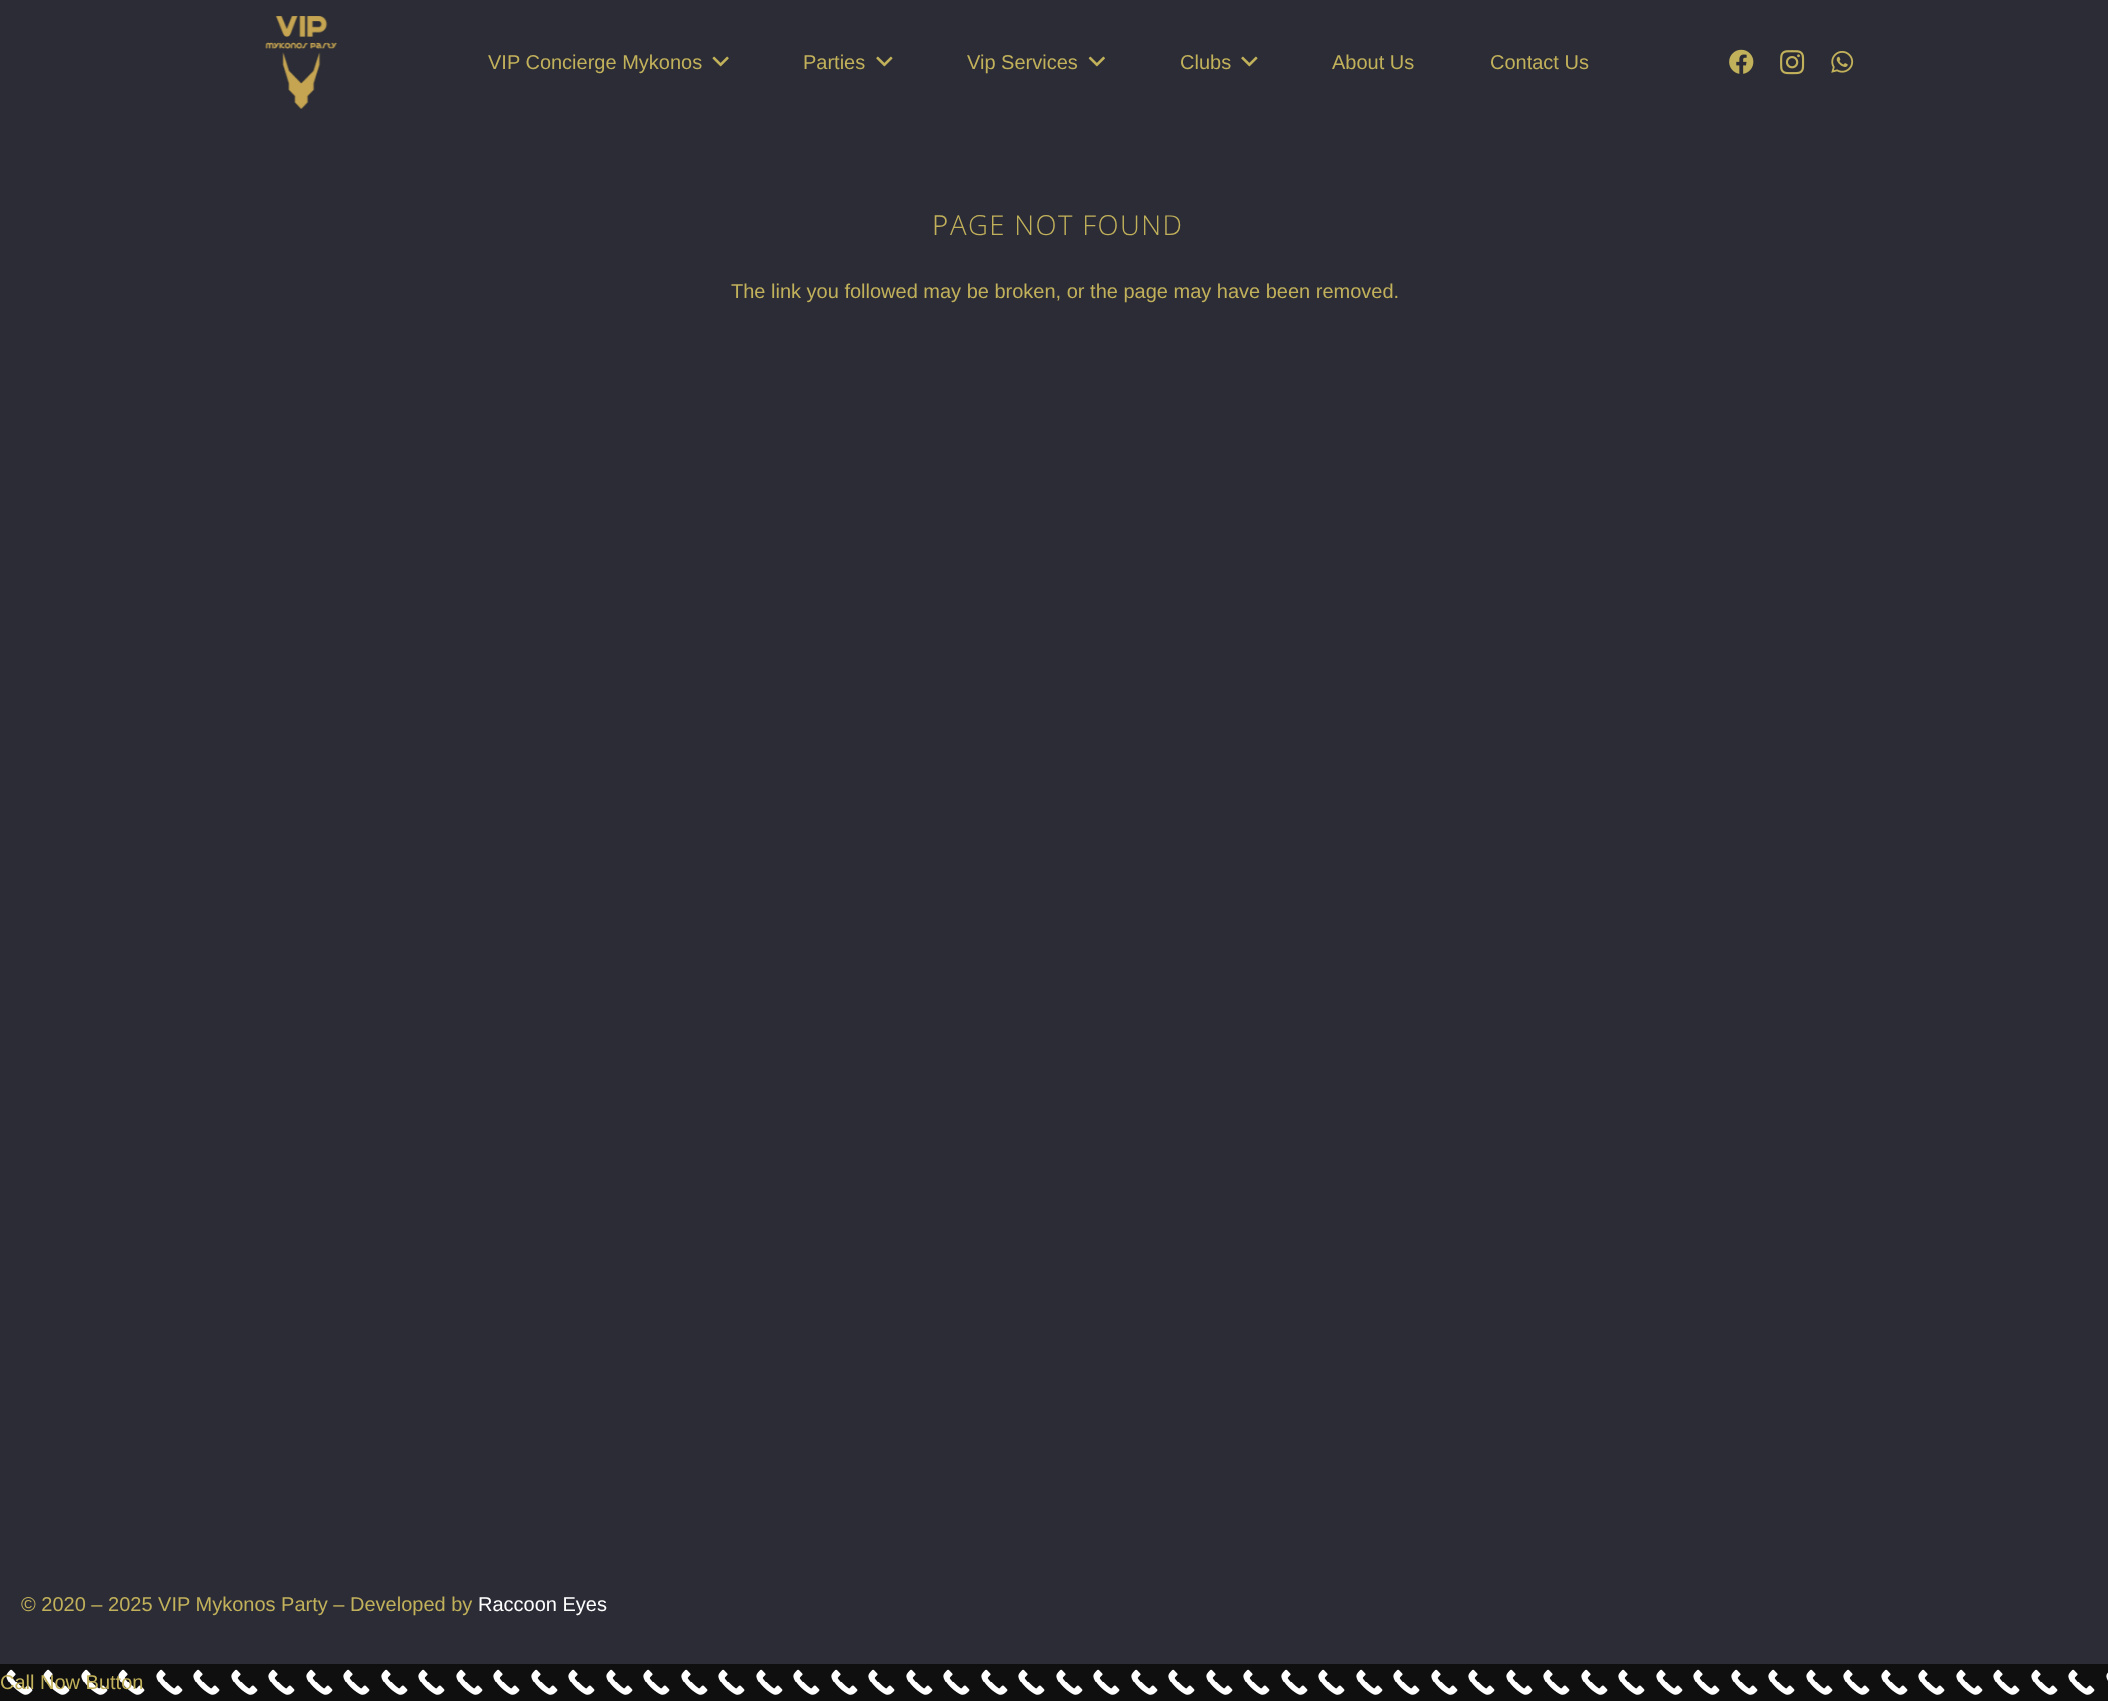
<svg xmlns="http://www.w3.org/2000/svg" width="2108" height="1701">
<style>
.a{font:20px Liberation Sans;fill:#c2b15b}
.b{font:300 27.5px Noto Sans;letter-spacing:1.4px;fill:#c2b15b}
.c{font:300 27.5px Open Sans;letter-spacing:1.4px;fill:#c2b15b}
.d{font:20px Liberation Sans;fill:#fff}
</style>
<rect width="100%" height="100%" fill="#2b2c36"/>
<image href="1.png" x="265" y="16" width="72" height="93"/>
<image href="2.png" x="712" y="56" width="17" height="11"/>
<image href="3.png" x="876" y="56" width="17" height="11"/>
<image href="4.png" x="1088" y="56" width="17" height="11"/>
<image href="3.png" x="1241" y="56" width="17" height="11"/>
<image href="5.png" x="1729" y="49" width="25" height="25"/>
<image href="6.png" x="1780" y="50" width="25" height="25"/>
<image href="7.png" x="1831" y="50" width="23" height="23"/>
<path fill="#0f0f0f" d="M0 1664h2108v37H0z"/>
<image href="8.png" x="6" y="1669" width="2102" height="26"/>
<text class="a" x="488" y="69">VIP Concierge Mykonos</text>
<text class="a" x="803" y="69">Parties</text>
<text class="a" x="967" y="69">Vip Services</text>
<text class="a" x="1180" y="69">Clubs</text>
<text class="a" x="1332" y="69">About Us</text>
<text class="a" x="1490" y="69">Contact Us</text>
<text class="b" x="932" y="235">P</text>
<text class="c" x="950" y="235">AGE NOT FOUND</text>
<text class="a" x="731" y="298">The link you followed may be broken, or the page may have been removed.</text>
<text class="a" x="21" y="1611">© 2020 – 2025 VIP Mykonos Party – Developed by</text>
<text class="d" x="478" y="1611">Raccoon Eyes</text>
<text class="a" x="0" y="1689">Call Now Button</text>
</svg>
